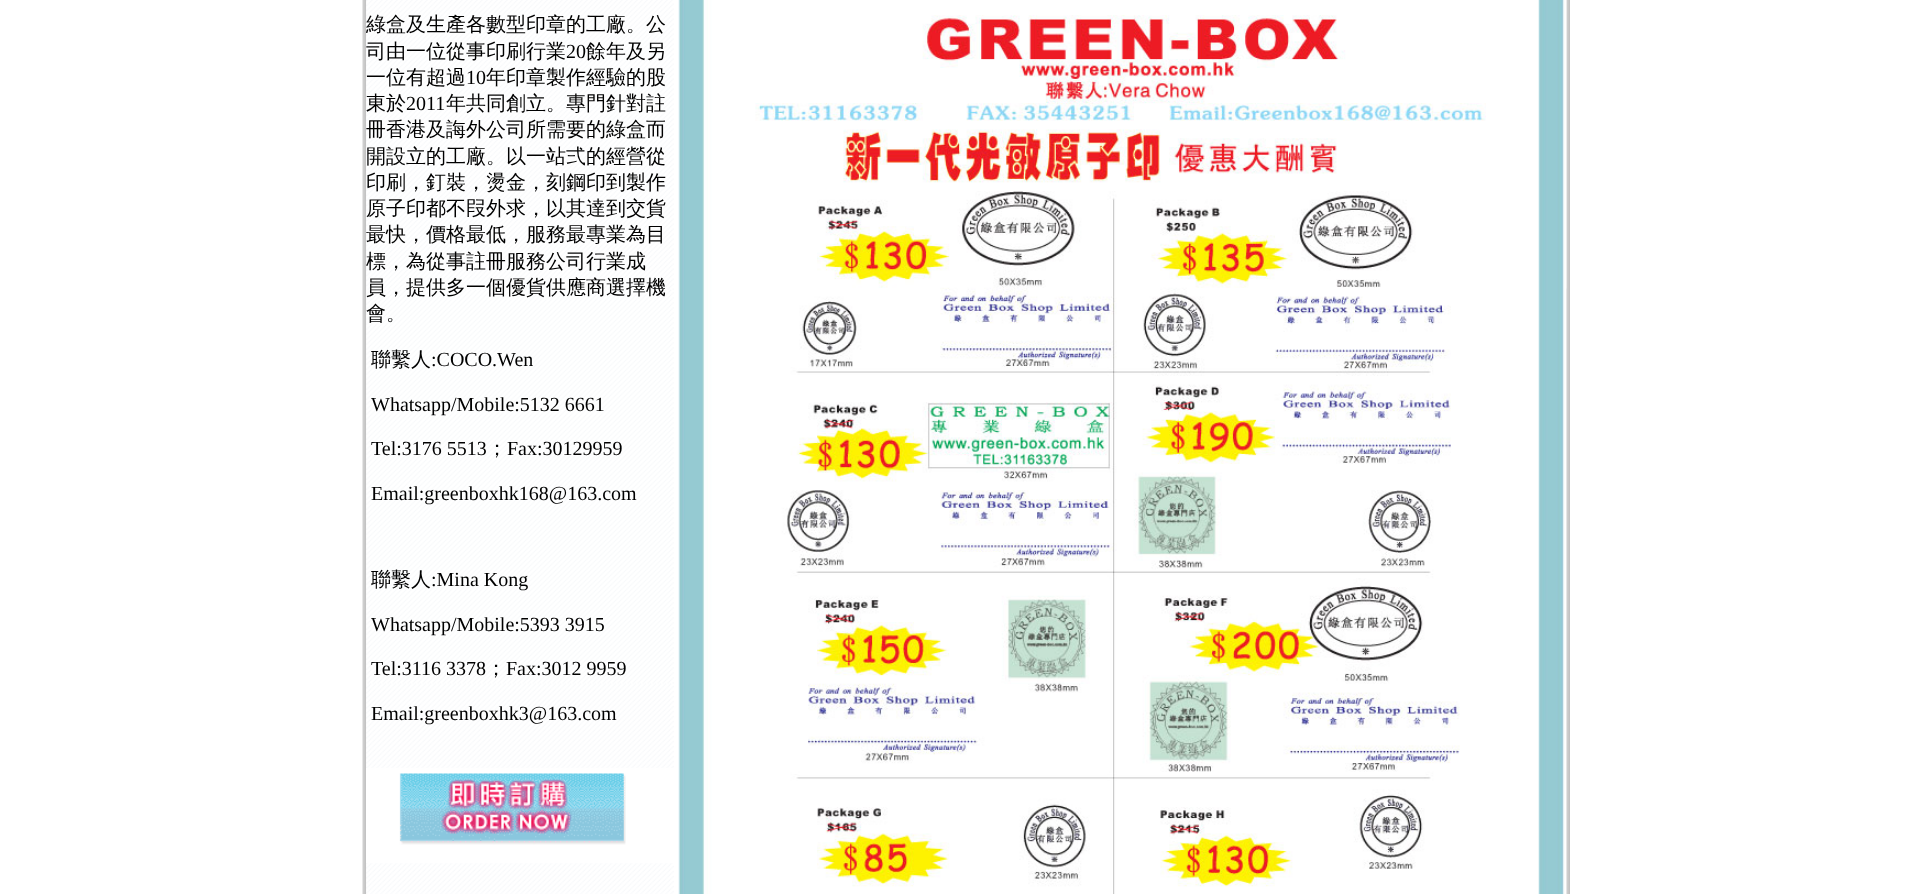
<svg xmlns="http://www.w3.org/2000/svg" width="1932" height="894">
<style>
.a{font:500 20px WenQuanYi Zen Hei;fill:#000}
.b{font:20px Liberation Serif;fill:#000}
</style>
<rect width="100%" height="100%" fill="#fff"/>
<image href="1.png" x="362" y="0" width="5" height="894"/>
<image href="2.png" x="1566" y="0" width="4" height="894"/>
<image href="3.png" x="366" y="0" width="308" height="894"/>
<path fill="#fff" d="M366 768h308v95H366z"/>
<image href="4.png" x="399" y="773" width="227" height="72"/>
<image href="5.png" x="1566" y="0" width="1" height="289"/>
<image href="6.png" x="678" y="0" width="889" height="894"/>
<text class="a" x="366" y="31">綠盒及生產各數型印章的工廠。公</text>
<text class="a" x="366" y="58">司由一位從事印刷行業</text>
<text class="b" x="566" y="58">20</text>
<text class="a" x="586" y="58">餘年及另</text>
<text class="a" x="366" y="84">一位有超過</text>
<text class="b" x="466" y="84">10</text>
<text class="a" x="486" y="84">年印章製作經驗的股</text>
<text class="a" x="366" y="110">東於</text>
<text class="b" x="406" y="110">2011</text>
<text class="a" x="446" y="110">年共同創立。專門針對註</text>
<text class="a" x="366" y="136">冊香港及誨外公司所需要的綠盒而</text>
<text class="a" x="366" y="163">開設立的工廠。以一站弍的經營從</text>
<text class="a" x="366" y="189">印刷，釘裝，燙金，刻鋼印到製作</text>
<text class="a" x="366" y="215">原子印都不叚外求，以其達到交貨</text>
<text class="a" x="366" y="241">最快，價格最低，服務最專業為目</text>
<text class="a" x="366" y="268">標，為從事註冊服務公司行業成</text>
<text class="a" x="366" y="294">員，提供多一個優貨供應商選擇機</text>
<text class="a" x="366" y="320">會。</text>
<text class="a" x="371" y="366">聯繫人</text>
<text class="b" x="431" y="366">:COCO.Wen</text>
<text class="b" x="371" y="411">Whatsapp/Mobile:5132 6661</text>
<text class="b" x="371" y="455">Tel:3176 5513</text>
<text class="a" x="487" y="455">；</text>
<text class="b" x="507" y="455">Fax:30129959</text>
<text class="b" x="371" y="500">Email:greenboxhk168@163.com</text>
<text class="a" x="371" y="586">聯繫人</text>
<text class="b" x="431" y="586">:Mina Kong</text>
<text class="b" x="371" y="631">Whatsapp/Mobile:5393 3915</text>
<text class="b" x="371" y="675">Tel:3116 3378</text>
<text class="a" x="486" y="675">；</text>
<text class="b" x="506" y="675">Fax:3012 9959</text>
<text class="b" x="371" y="720">Email:greenboxhk3@163.com</text>
</svg>
